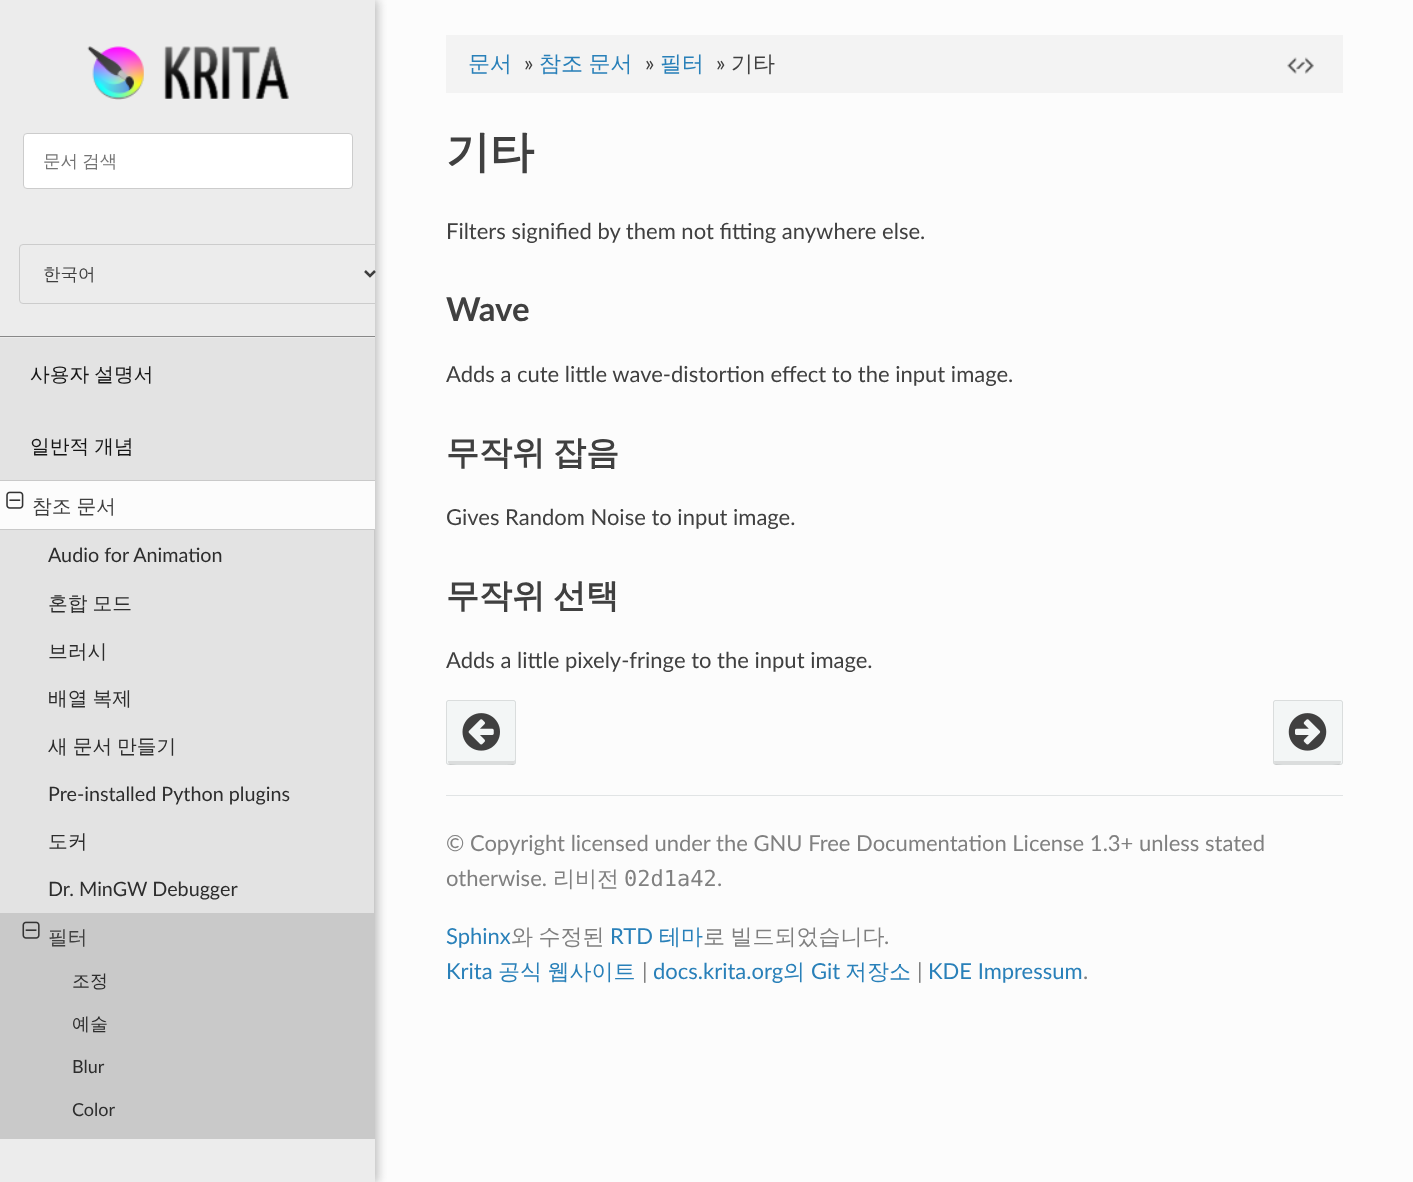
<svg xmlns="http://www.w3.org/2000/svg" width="1413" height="1182">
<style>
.a{font:500 17.5px WenQuanYi Zen Hei;fill:#757575}
.b{font:500 17.5px WenQuanYi Zen Hei;fill:#404040}
.c{font:500 19.75px WenQuanYi Zen Hei;fill:#151515}
.d{font:500 19.75px WenQuanYi Zen Hei;fill:#404040}
.e{font:19.75px Lato;fill:#2d2d2d}
.f{font:500 19.75px WenQuanYi Zen Hei;fill:#2d2d2d}
.g{font:500 18px WenQuanYi Zen Hei;fill:#2d2d2d}
.h{font:18px Lato;fill:#2d2d2d}
.i{font:500 22px WenQuanYi Zen Hei;fill:#2980b9}
.j{font:22px Lato;fill:#404040}
.k{font:500 22px WenQuanYi Zen Hei;fill:#404040}
.l{font:bold 44px WenQuanYi Zen Hei;fill:#404040}
.m{font:bold 33px Lato;fill:#404040}
.n{font:bold 33px WenQuanYi Zen Hei;fill:#404040}
.o{font:22px Lato;fill:#808080}
.p{font:500 22px WenQuanYi Zen Hei;fill:#808080}
.q{font:22px DejaVu Sans Mono;fill:#808080}
.r{font:22px Lato;fill:#2980b9}
</style>
<defs>
<clipPath id="clip1"><path d="M0 0h375v1139H0z"/></clipPath>
</defs>
<rect width="100%" height="100%" fill="#fcfcfc"/>
<path fill="#bfbfbf" filter="blur(5px)" d="M3 0h375v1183H3z"/>
<path fill="#ececec" d="M0 0h375v1182H0z"/>
<image href="1.png" x="87" y="46" width="202" height="54"/>
<rect fill="#fff" stroke="#ccc" x="23.5" y="133.5" width="329" height="55" rx="3.5"/>
<path fill="#888" d="M0 336h375v1H0z"/>
<g clip-path="url(#clip1)">
<rect fill="none" stroke="#ccc" x="19.5" y="244.5" width="361" height="59" rx="3.5"/>
</g>
<path fill="none" stroke="#3e3e3e" stroke-width="2.5" d="M365 271l5 5l5-5"/>
<path fill="#e3e3e3" d="M0 338h375v142H0z"/>
<path fill="#e3e3e3" d="M0 530h374v383H0z"/>
<path fill="#fcfcfc" d="M0 481h375v48H0z"/>
<path fill="#c9c9c9" d="M0 480h375v1H0z"/>
<path fill="#c9c9c9" d="M0 529h375v1H0z"/>
<image href="2.png" x="6" y="491" width="18" height="18"/>
<path fill="#c9c9c9" d="M374 530h1v383H374z"/>
<path fill="#c9c9c9" d="M0 913h375v226H0z"/>
<image href="3.png" x="22" y="921" width="18" height="18"/>
<path fill="#f3f3f3" d="M446 35h897v58H446z"/>
<image href="4.png" x="1287" y="57" width="27" height="17"/>
<rect fill="#f3f6f6" x="446" y="700" width="70" height="65" rx="2.5"/>
<path fill="#dbdddd" d="M448 760c0 7 2 4 12 4h43c10 0 12 3 12-4l-1 1h-65c-1 0-1 0-1-1z"/>
<rect fill="none" stroke="#0000001a" x="446.5" y="700.5" width="69" height="64" rx="2"/>
<image href="5.png" x="462" y="713" width="38" height="38"/>
<rect fill="#f3f6f6" x="1273" y="700" width="70" height="65" rx="2.5"/>
<path fill="#dbdddd" d="M1274 760c0 7 2 4 12 4h43c10 0 12 3 12-4c0 1 0 1-1 1h-65c-1 0-1 0-1-1z"/>
<rect fill="none" stroke="#0000001a" x="1273.5" y="700.5" width="69" height="64" rx="2"/>
<image href="6.png" x="1288" y="713" width="39" height="38"/>
<path fill="#e1e4e5" d="M446 795h897v1H446z"/>
<text class="a" x="43" y="167" word-spacing="-1">문서 검색</text>
<text class="b" x="43" y="280">한국어</text>
<text class="c" x="30" y="381" word-spacing="-1">사용자 설명서</text>
<text class="c" x="30" y="453" word-spacing="-1">일반적 개념</text>
<text class="d" x="32" y="513" word-spacing="-1">참조 문서</text>
<text class="e" x="48" y="562">Audio for Animation</text>
<text class="f" x="48" y="610" word-spacing="-1">혼합 모드</text>
<text class="f" x="48" y="658">브러시</text>
<text class="f" x="48" y="705" word-spacing="-1">배열 복제</text>
<text class="f" x="48" y="753" word-spacing="-1">새 문서 만들기</text>
<text class="e" x="48" y="801">Pre-installed Python plugins</text>
<text class="f" x="48" y="848">도커</text>
<text class="e" x="48" y="896">Dr. MinGW Debugger</text>
<text class="d" x="48" y="944">필터</text>
<text class="g" x="72" y="987">조정</text>
<text class="g" x="72" y="1030">예술</text>
<text class="h" x="72" y="1073">Blur</text>
<text class="h" x="72" y="1116">Color</text>
<text class="i" x="468" y="71">문서</text>
<text class="j" x="524" y="71">»</text>
<text class="i" x="539" y="71" word-spacing="-1">참조 문서</text>
<text class="j" x="645" y="71">»</text>
<text class="i" x="660" y="71">필터</text>
<text class="j" x="716" y="71">»</text>
<text class="k" x="731" y="71">기타</text>
<text class="l" x="446" y="167">기타</text>
<text class="j" x="446" y="239">Filters signified by them not fitting anywhere else.</text>
<text class="m" x="446" y="321">Wave</text>
<text class="j" x="446" y="382">Adds a cute little wave-distortion effect to the input image.</text>
<text class="n" x="446" y="464" word-spacing="-2">무작위 잡음</text>
<text class="j" x="446" y="525">Gives Random Noise to input image.</text>
<text class="n" x="446" y="607" word-spacing="-2">무작위 선택</text>
<text class="j" x="446" y="668">Adds a little pixely-fringe to the input image.</text>
<text class="o" x="446" y="851">© Copyright licensed under the GNU Free Documentation License 1.3+ unless stated</text>
<text class="o" x="446" y="886">otherwise.</text>
<text class="p" x="553" y="886">리비전</text>
<text class="q" x="624" y="886">02d1a42</text>
<text class="o" x="717" y="886">.</text>
<text class="r" x="446" y="944">Sphinx</text>
<text class="p" x="511" y="944" word-spacing="-1">와 수정된</text>
<text class="r" x="610" y="944">RTD</text>
<text class="i" x="659" y="944">테마</text>
<text class="p" x="703" y="944" word-spacing="-1">로 빌드되었습니다</text>
<text class="o" x="884" y="944">.</text>
<text class="r" x="446" y="979">Krita</text>
<text class="i" x="498" y="979" word-spacing="-1">공식 웹사이트</text>
<text class="o" x="642" y="979">|</text>
<text class="r" x="653" y="979">docs.krita.org</text>
<text class="i" x="783" y="979">의</text>
<text class="r" x="811" y="979">Git</text>
<text class="i" x="845" y="979">저장소</text>
<text class="o" x="917" y="979">|</text>
<text class="r" x="928" y="979">KDE Impressum</text>
<text class="o" x="1083" y="979">.</text>
</svg>
